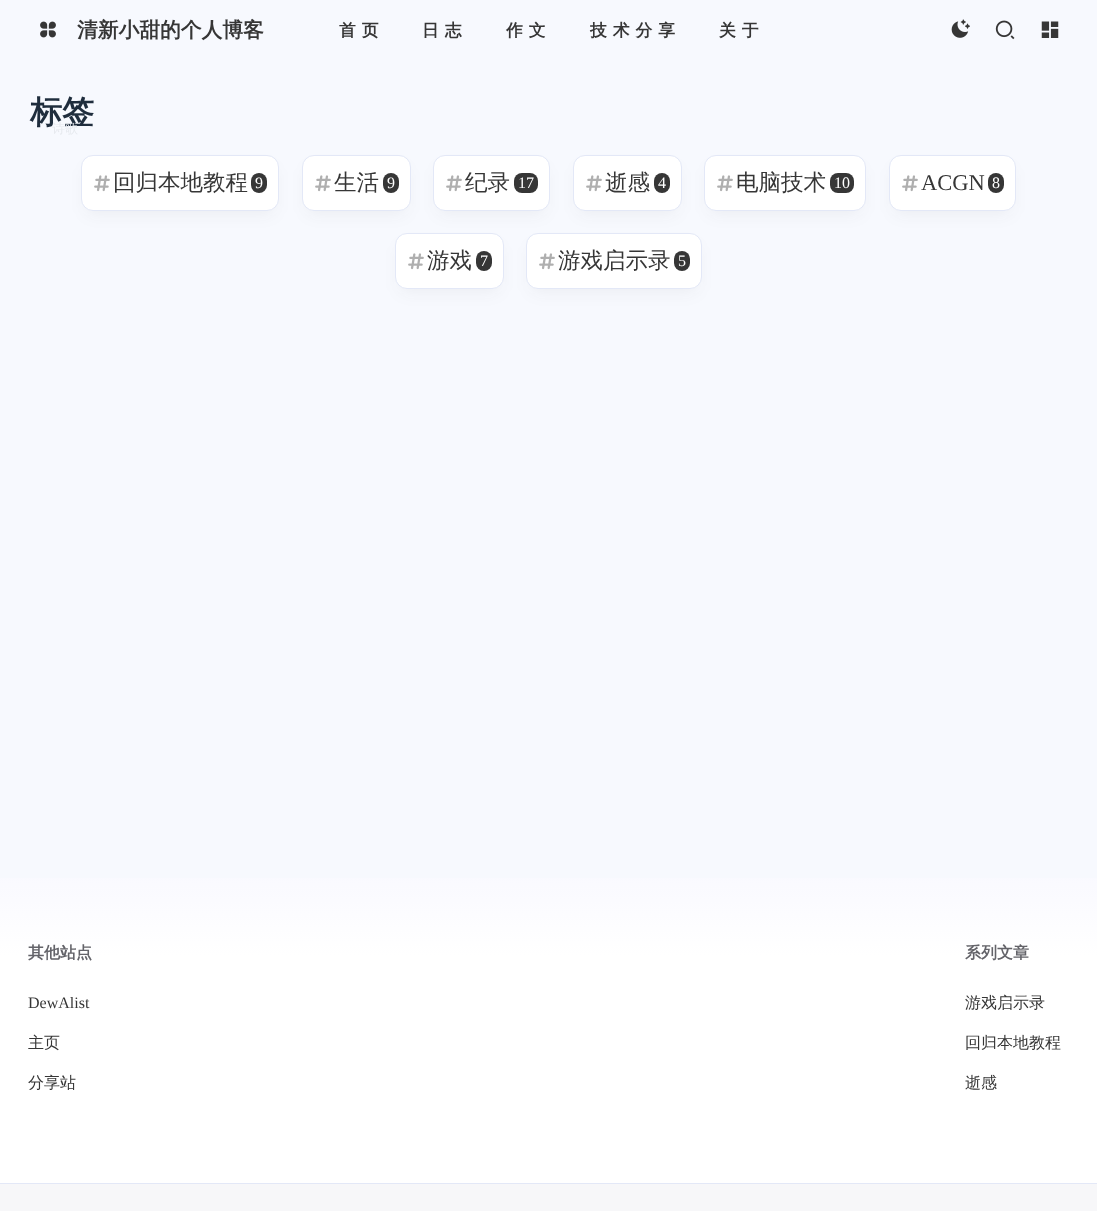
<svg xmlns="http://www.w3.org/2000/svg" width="1097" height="1211">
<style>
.a{font:bold 20.75px WenQuanYi Zen Hei;fill:#363636}
.b{font:bold 16.75px WenQuanYi Zen Hei;letter-spacing:6px;fill:#363636}
.c{font:bold 32px WenQuanYi Zen Hei;fill:#1f2d3d}
.d{font:500 13px WenQuanYi Zen Hei;fill:#e6e9ee}
.e{font:500 22.5px WenQuanYi Zen Hei;fill:#363636}
.f{font:16px Liberation Serif;fill:#fff}
.g{font:22.5px Liberation Serif;fill:#363636}
.h{font:bold 16px WenQuanYi Zen Hei;fill:#636369}
.i{font:16px Liberation Serif;fill:#363636}
.j{font:500 16px WenQuanYi Zen Hei;fill:#363636}
</style>
<defs>
<linearGradient id="g1" gradientUnits="userSpaceOnUse" x1="549" y1="857" x2="549" y2="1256"><stop offset="0" stop-color="#f8f8ff"/><stop offset="0.25" stop-color="#fff"/></linearGradient>
</defs>
<rect width="100%" height="100%" fill="#f7f9fe"/>
<image href="1.png" x="40" y="21" width="16" height="17"/>
<image href="2.png" x="951" y="19" width="19" height="19"/>
<image href="3.png" x="995" y="20" width="20" height="20"/>
<image href="4.png" x="1041" y="21" width="18" height="17"/>
<rect fill="#2c2d300d" filter="blur(8px)" x="85" y="167" width="190" height="48" rx="8"/>
<rect fill="#fff" stroke="#e3e8f7" x="81.5" y="155.5" width="197" height="55" rx="11.5"/>
<image href="5.png" x="94" y="175" width="16" height="17"/>
<rect fill="#363636" x="251" y="173" width="16" height="20" rx="8"/>
<rect fill="#2c2d300d" filter="blur(8px)" x="306" y="167" width="101" height="48" rx="8"/>
<rect fill="#fff" stroke="#e3e8f7" x="302.5" y="155.5" width="108" height="55" rx="11.5"/>
<image href="5.png" x="315" y="175" width="16" height="17"/>
<rect fill="#363636" x="383" y="173" width="16" height="20" rx="8"/>
<rect fill="#2c2d300d" filter="blur(8px)" x="437" y="167" width="109" height="48" rx="8"/>
<rect fill="#fff" stroke="#e3e8f7" x="433.5" y="155.5" width="116" height="55" rx="11.5"/>
<image href="5.png" x="446" y="175" width="16" height="17"/>
<rect fill="#363636" x="514" y="173" width="24" height="20" rx="8"/>
<rect fill="#2c2d300d" filter="blur(8px)" x="577" y="167" width="101" height="48" rx="8"/>
<rect fill="#fff" stroke="#e3e8f7" x="573.5" y="155.5" width="108" height="55" rx="11.5"/>
<image href="5.png" x="586" y="175" width="16" height="17"/>
<rect fill="#363636" x="654" y="173" width="16" height="20" rx="8"/>
<rect fill="#2c2d300d" filter="blur(8px)" x="708" y="167" width="154" height="48" rx="8"/>
<rect fill="#fff" stroke="#e3e8f7" x="704.5" y="155.5" width="161" height="55" rx="11.5"/>
<image href="5.png" x="717" y="175" width="16" height="17"/>
<rect fill="#363636" x="830" y="173" width="24" height="20" rx="8"/>
<rect fill="#2c2d300d" filter="blur(8px)" x="893" y="167" width="119" height="48" rx="8"/>
<rect fill="#fff" stroke="#e3e8f7" x="889.5" y="155.5" width="126" height="55" rx="11.5"/>
<image href="5.png" x="902" y="175" width="16" height="17"/>
<rect fill="#363636" x="988" y="173" width="16" height="20" rx="8"/>
<rect fill="#2c2d300d" filter="blur(8px)" x="399" y="245" width="101" height="48" rx="8"/>
<rect fill="#fff" stroke="#e3e8f7" x="395.5" y="233.5" width="108" height="55" rx="11.5"/>
<image href="5.png" x="408" y="253" width="16" height="17"/>
<rect fill="#363636" x="476" y="251" width="16" height="20" rx="8"/>
<rect fill="#2c2d300d" filter="blur(8px)" x="530" y="245" width="168" height="48" rx="8"/>
<rect fill="#fff" stroke="#e3e8f7" x="526.5" y="233.5" width="175" height="55" rx="11.5"/>
<image href="5.png" x="539" y="253" width="16" height="17"/>
<rect fill="#363636" x="674" y="251" width="16" height="20" rx="8"/>
<path fill="url(#g1)" d="M0 878h1097v305H0z"/>
<path fill="#f7f7f9" d="M0 1184h1097v27H0z"/>
<path fill="#e3e8f7" d="M0 1183h1097v1H0z"/>
<text class="a" x="77" y="37">清新小甜的个人博客</text>
<text class="b" x="339" y="36">首页</text>
<text class="b" x="422" y="36">日志</text>
<text class="b" x="506" y="36">作文</text>
<text class="b" x="590" y="36">技术分享</text>
<text class="b" x="719" y="36">关于</text>
<text class="c" x="30" y="123">标签</text>
<text class="d" x="52" y="133">诗歌</text>
<text class="e" x="113" y="190">回归本地教程</text>
<text class="f" x="255" y="188">9</text>
<text class="e" x="334" y="190">生活</text>
<text class="f" x="387" y="188">9</text>
<text class="e" x="465" y="190">纪录</text>
<text class="f" x="518" y="188">17</text>
<text class="e" x="605" y="190">逝感</text>
<text class="f" x="658" y="188">4</text>
<text class="e" x="736" y="190">电脑技术</text>
<text class="f" x="834" y="188">10</text>
<text class="g" x="921" y="190">ACGN</text>
<text class="f" x="992" y="188">8</text>
<text class="e" x="427" y="268">游戏</text>
<text class="f" x="480" y="266">7</text>
<text class="e" x="558" y="268">游戏启示录</text>
<text class="f" x="678" y="266">5</text>
<text class="h" x="28" y="958">其他站点</text>
<text class="i" x="28" y="1008">DewAlist</text>
<text class="j" x="28" y="1048">主页</text>
<text class="j" x="28" y="1088">分享站</text>
<text class="h" x="965" y="958">系列文章</text>
<text class="j" x="965" y="1008">游戏启示录</text>
<text class="j" x="965" y="1048">回归本地教程</text>
<text class="j" x="965" y="1088">逝感</text>
</svg>
